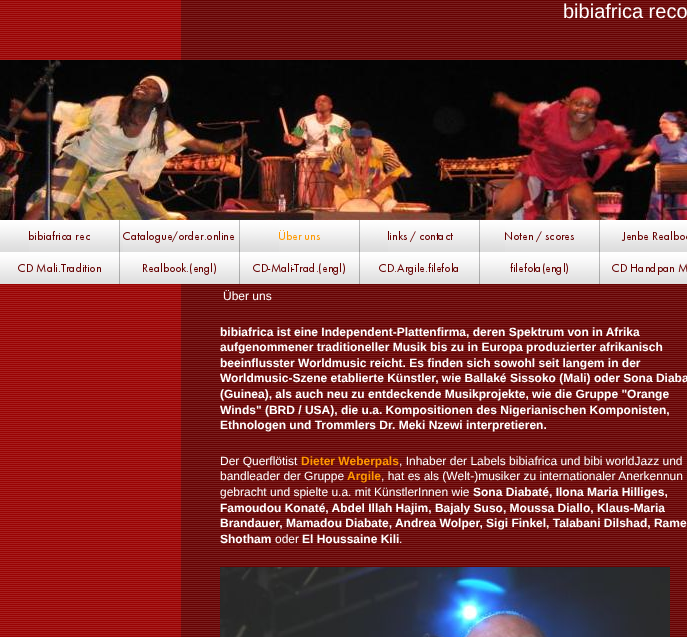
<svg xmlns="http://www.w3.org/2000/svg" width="687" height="637">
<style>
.a{font:20px Liberation Sans;fill:#fff}
.b{font:12px Liberation Sans;fill:#fff}
.c{font:bold 12px Liberation Sans;fill:#fff}
.d{font:bold 12px Liberation Sans;fill:#f90}
</style>
<rect width="100%" height="100%" fill="#fff"/>
<image href="1.png" x="0" y="0" width="687" height="637"/>
<image href="2.png" x="0" y="60" width="687" height="160"/>
<image href="3.png" x="0" y="220" width="687" height="32"/>
<image href="4.png" x="29" y="220" width="91" height="32"/>
<image href="5.png" x="123" y="220" width="117" height="32"/>
<image href="6.png" x="279" y="220" width="81" height="32"/>
<image href="7.png" x="388" y="220" width="92" height="32"/>
<image href="8.png" x="505" y="220" width="95" height="32"/>
<image href="9.png" x="621" y="231" width="66" height="10"/>
<image href="10.png" x="0" y="252" width="120" height="32"/>
<image href="11.png" x="120" y="252" width="120" height="32"/>
<image href="12.png" x="240" y="252" width="120" height="32"/>
<image href="13.png" x="360" y="252" width="120" height="32"/>
<image href="14.png" x="480" y="252" width="120" height="32"/>
<image href="15.png" x="600" y="252" width="87" height="32"/>
<image href="16.png" x="220" y="567" width="450" height="70"/>
<text class="a" x="563" y="18">bibiafrica reco</text>
<text class="b" x="223" y="300">Über uns</text>
<text class="c" x="220" y="336">bibiafrica ist eine Independent-Plattenfirma, deren Spektrum von in Afrika</text>
<text class="c" x="220" y="351">aufgenommener traditioneller Musik bis zu in Europa produzierter afrikanisch</text>
<text class="c" x="220" y="367">beeinflusster Worldmusic reicht. Es finden sich sowohl seit langem in der</text>
<text class="c" x="220" y="382">Worldmusic-Szene etablierte Künstler, wie Ballaké Sissoko (Mali) oder Sona Diaba</text>
<text class="c" x="220" y="398">(Guinea), als auch neu zu entdeckende Musikprojekte, wie die Gruppe "Orange</text>
<text class="c" x="220" y="414">Winds" (BRD / USA), die u.a. Kompositionen des Nigerianischen Komponisten,</text>
<text class="c" x="220" y="429">Ethnologen und Trommlers Dr. Meki Nzewi interpretieren.</text>
<text class="b" x="220" y="465">Der Querflötist</text>
<text class="d" x="301" y="465">Dieter Weberpals</text>
<text class="b" x="399" y="465">, Inhaber der Labels bibiafrica und bibi worldJazz und</text>
<text class="b" x="220" y="480">bandleader der Gruppe</text>
<text class="d" x="347" y="480">Argile</text>
<text class="b" x="381" y="480">, hat es als (Welt-)musiker zu internationaler Anerkennun</text>
<text class="b" x="220" y="496">gebracht und spielte u.a. mit KünstlerInnen wie</text>
<text class="c" x="473" y="496">Sona Diabaté, Ilona Maria Hilliges,</text>
<text class="c" x="220" y="512">Famoudou Konaté, Abdel Illah Hajim, Bajaly Suso, Moussa Diallo, Klaus-Maria</text>
<text class="c" x="220" y="527">Brandauer, Mamadou Diabate, Andrea Wolper, Sigi Finkel, Talabani Dilshad, Rame</text>
<text class="c" x="220" y="543">Shotham</text>
<text class="b" x="275" y="543">oder</text>
<text class="c" x="302" y="543">El Houssaine Kili</text>
<text class="b" x="399" y="543">.</text>
</svg>
